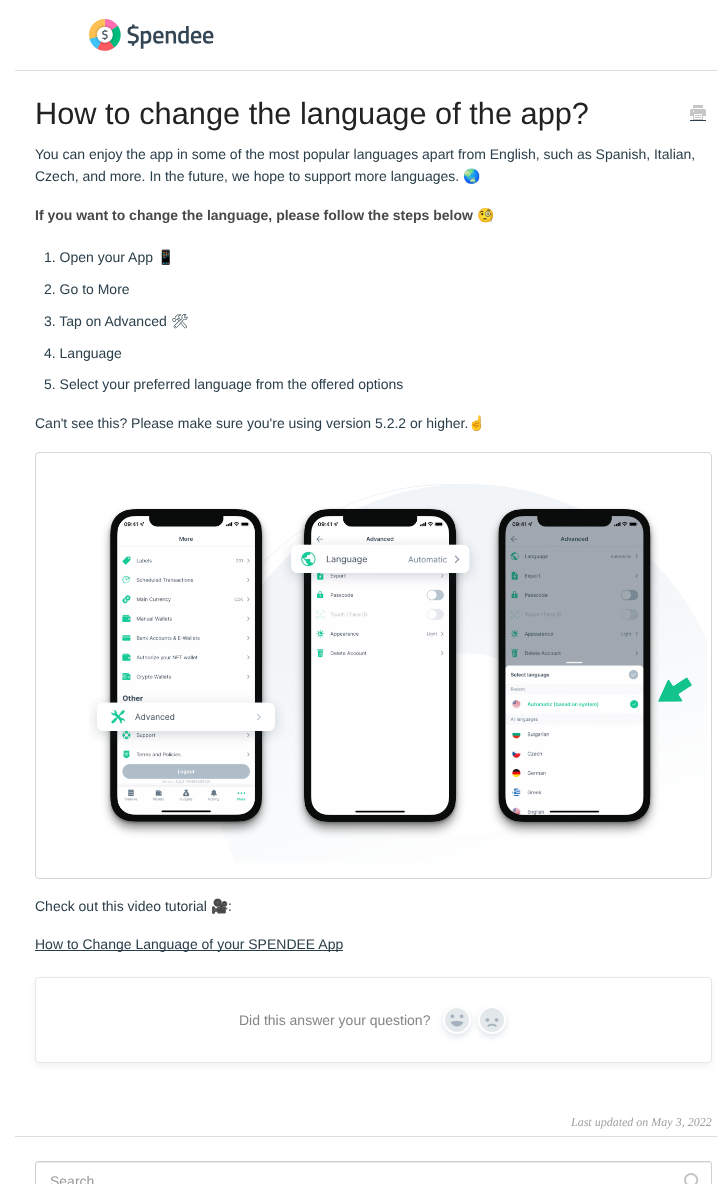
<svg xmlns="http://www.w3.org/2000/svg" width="717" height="1184">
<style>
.a{font:30.75px Liberation Sans;fill:#222}
.b{font:14px Liberation Sans;fill:#2a3e49}
.c{font:14px Noto Color Emoji;fill:#2a3e49}
.d{font:bold 14px Liberation Sans;fill:#494949}
.e{font:bold 14px Noto Color Emoji;fill:#494949}
.f{font:14px Noto Emoji;fill:#2a3e49}
.g{font:14px Liberation Sans;fill:#858585}
.h{font:italic 12px Liberation Serif;fill:#a0a0a0}
.i{font:14px Liberation Sans;fill:#999}
</style>
<rect width="100%" height="100%" fill="#fff"/>
<image href="1.png" x="89" y="19" width="125" height="32"/>
<path fill="#dedede" d="M15 70h702v1H15z"/>
<path fill="#dedede" d="M15 1136h702v1H15z"/>
<image href="2.png" x="690" y="105" width="16" height="15"/>
<path fill="#2a3e49" d="M690 120h16v1H690z"/>
<rect fill="none" stroke="#d6d6d6" x="35.5" y="452.5" width="676" height="426" rx="3.5"/>
<image href="3.png" x="89" y="484" width="618" height="379"/>
<path fill="#2a3e49" d="M35 950h308v1H35z"/>
<rect fill="#0000000d" filter="blur(3px)" x="35" y="980" width="677" height="86" rx="4"/>
<rect fill="#fff" stroke="#e9e5e5" x="35.5" y="977.5" width="676" height="85" rx="3.5"/>
<rect fill="#c1cbd480" filter="blur(3px)" x="443" y="1009" width="28" height="28" rx="14"/>
<circle fill="#e3e8eb" stroke="#fff" stroke-width="2" cx="457" cy="1020" r="13"/>
<image href="4.png" x="450" y="1014" width="14" height="13"/>
<rect fill="#c1cbd480" filter="blur(3px)" x="478" y="1009" width="28" height="28" rx="14"/>
<circle fill="#e3e8eb" stroke="#fff" stroke-width="2" cx="492" cy="1020" r="13"/>
<image href="5.png" x="485" y="1018" width="14" height="9"/>
<path fill="#ececec" d="M38 1163h671c1 0 2 1 2 2c0-1 0-3-2-3h-671c-2 0-2 2-2 3c0-1 1-2 2-2z"/>
<rect fill="none" stroke="#d0d0d0" x="35.5" y="1161.5" width="676" height="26" rx="2.5"/>
<image href="6.png" x="684" y="1173" width="15" height="11"/>
<text class="a" x="35" y="124">How to change the language of the app?</text>
<text class="b" x="35" y="159">You can enjoy the app in some of the most popular languages apart from English, such as Spanish, Italian,</text>
<text class="b" x="35" y="181">Czech, and more. In the future, we hope to support more languages.</text>
<text class="c" x="463" y="181">🌏</text>
<text class="d" x="35" y="220">If you want to change the language, please follow the steps below</text>
<text class="e" x="477" y="220">🧐</text>
<text class="b" x="44" y="262">1. Open your App</text>
<text class="c" x="157" y="262">📱</text>
<text class="b" x="44" y="294">2. Go to More</text>
<text class="b" x="44" y="326">3. Tap on Advanced</text>
<text class="f" x="171" y="326">🛠</text>
<text class="b" x="44" y="358">4. Language</text>
<text class="b" x="44" y="389">5. Select your preferred language from the offered options</text>
<text class="b" x="35" y="428">Can't see this? Please make sure you're using version 5.2.2 or higher.</text>
<text class="c" x="468" y="428">☝</text>
<text class="b" x="35" y="911">Check out this video tutorial</text>
<text class="c" x="211" y="911">🎥</text>
<text class="b" x="228" y="911">:</text>
<text class="b" x="35" y="949">How to Change Language of your SPENDEE App</text>
<text class="g" x="239" y="1025">Did this answer your question?</text>
<text class="h" x="571" y="1126">Last updated on May 3, 2022</text>
<text class="i" x="50" y="1186">Search</text>
</svg>
